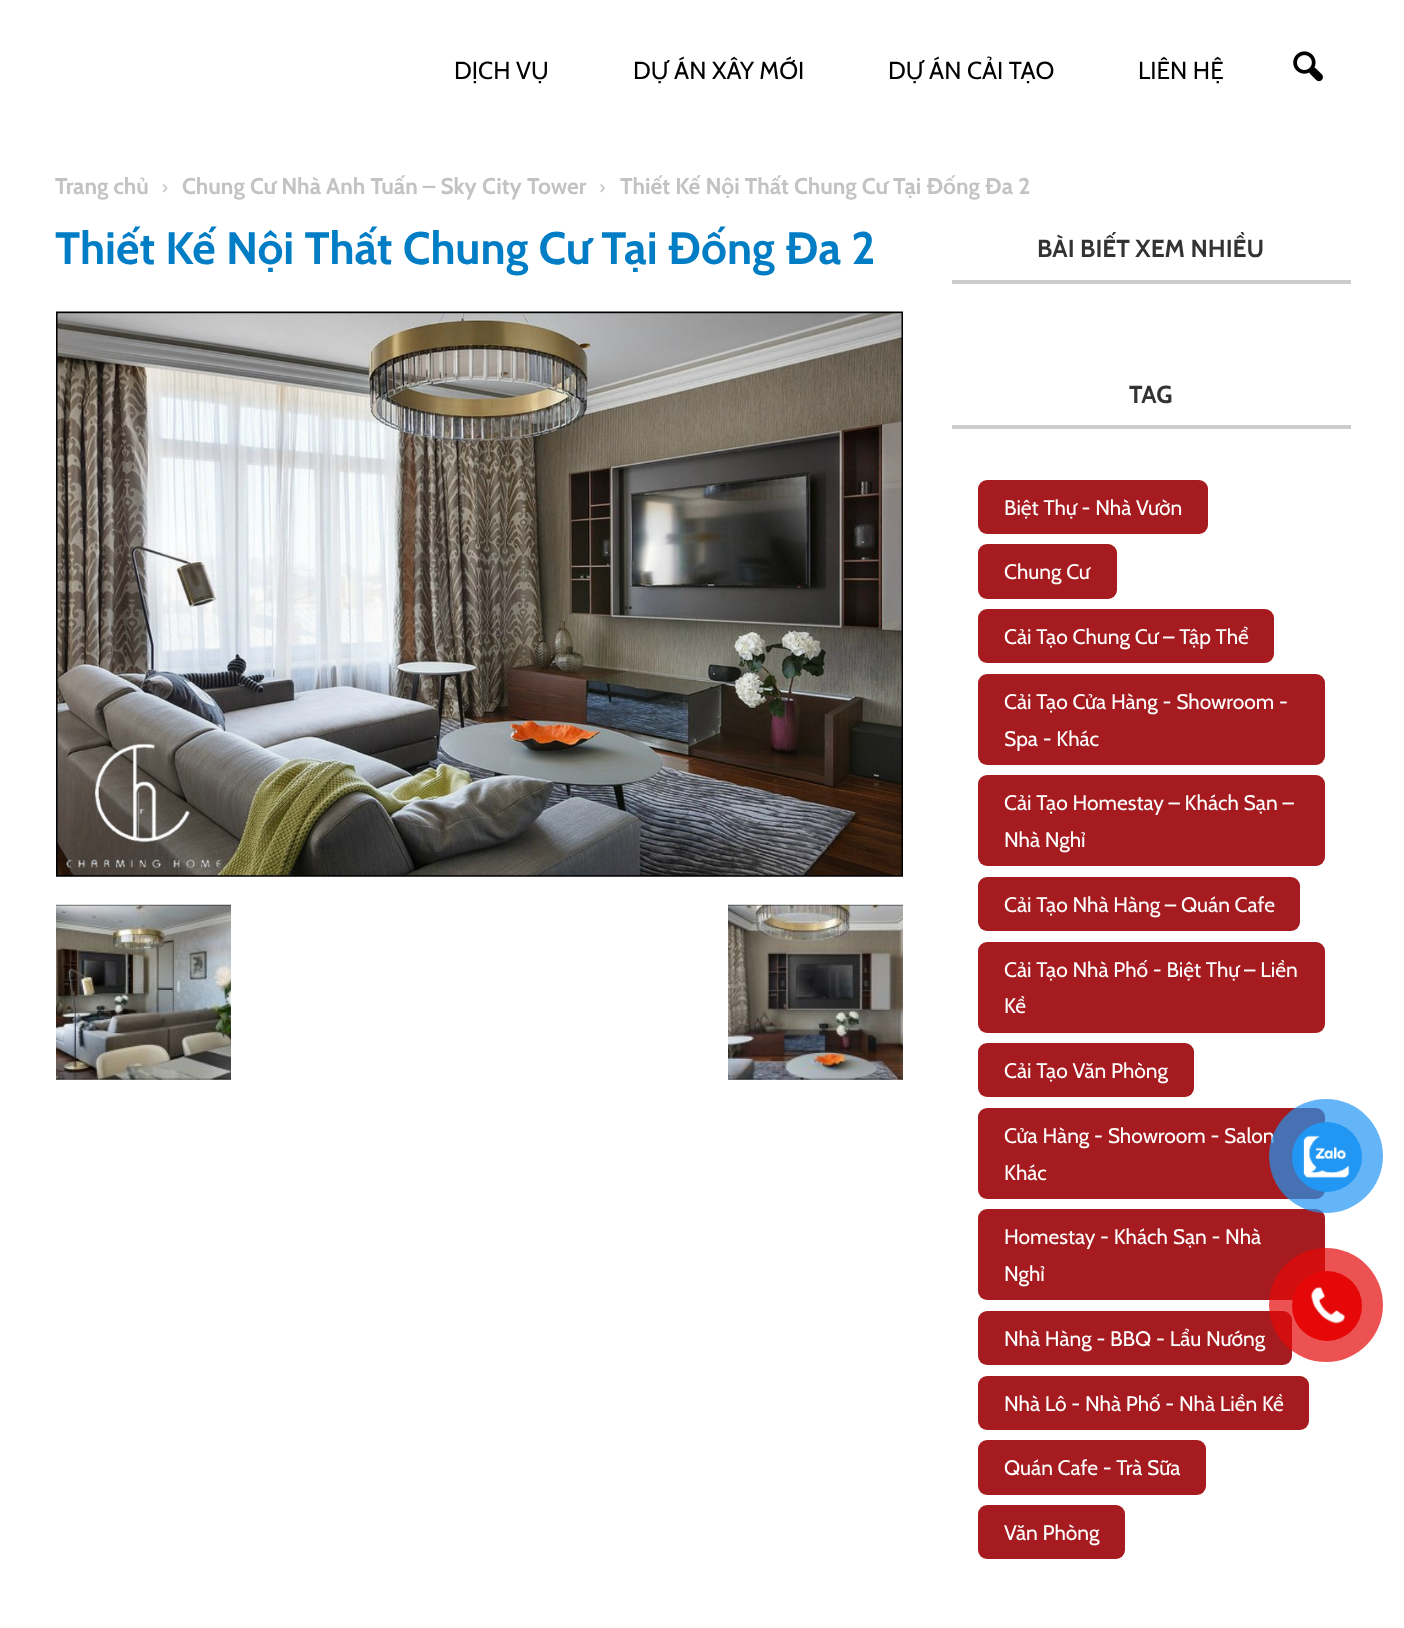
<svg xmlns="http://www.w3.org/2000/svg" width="1404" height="1628">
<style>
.a{font:24.5px Cabin;fill:#000}
.b{font:bold 22.75px Cabin;fill:#c3c3c3}
.c{font:bold 45.5px Cabin;fill:#007dc4}
.d{font:bold 24.5px Cabin;fill:#333}
.e{font:21px Cabin;fill:#fff}
</style>
<rect width="100%" height="100%" fill="#fff"/>
<image href="1.png" x="1293" y="51" width="30" height="31"/>
<image href="2.png" x="162" y="184" width="6" height="9"/>
<image href="3.png" x="600" y="184" width="5" height="9"/>
<image href="4.png" x="56" y="311" width="847" height="566"/>
<image href="5.png" x="56" y="904" width="175" height="176"/>
<image href="6.png" x="728" y="904" width="175" height="176"/>
<path fill="#ccc" d="M952 280h399v4H952z"/>
<path fill="#ccc" d="M952 425h399v4H952z"/>
<rect fill="#a51b1f" x="978" y="480" width="230" height="54" rx="9"/>
<rect fill="#a51b1f" x="978" y="544" width="139" height="55" rx="9"/>
<rect fill="#a51b1f" x="978" y="609" width="296" height="54" rx="9"/>
<rect fill="#a51b1f" x="978" y="674" width="347" height="91" rx="9"/>
<rect fill="#a51b1f" x="978" y="775" width="347" height="91" rx="9"/>
<rect fill="#a51b1f" x="978" y="877" width="322" height="54" rx="9"/>
<rect fill="#a51b1f" x="978" y="942" width="347" height="91" rx="9"/>
<rect fill="#a51b1f" x="978" y="1043" width="216" height="54" rx="9"/>
<rect fill="#a51b1f" x="978" y="1108" width="347" height="91" rx="9"/>
<rect fill="#a51b1f" x="978" y="1209" width="347" height="91" rx="9"/>
<rect fill="#a51b1f" x="978" y="1311" width="314" height="54" rx="9"/>
<rect fill="#a51b1f" x="978" y="1376" width="331" height="54" rx="9"/>
<rect fill="#a51b1f" x="978" y="1440" width="228" height="55" rx="9"/>
<rect fill="#a51b1f" x="978" y="1505" width="147" height="54" rx="9"/>
<circle fill="#e60808b3" cx="1326" cy="1305" r="57"/>
<circle fill="#e60808" cx="1327" cy="1306" r="35"/>
<image href="8.png" x="1311" y="1286" width="34" height="38"/>
<text class="a" x="454" y="79">DỊCH VỤ</text>
<text class="a" x="633" y="79">DỰ ÁN XÂY MỚI</text>
<text class="a" x="888" y="79">DỰ ÁN CẢI TẠO</text>
<text class="a" x="1138" y="79">LIÊN HỆ</text>
<text class="b" x="55" y="194">Trang chủ</text>
<text class="b" x="182" y="194">Chung Cư Nhà Anh Tuấn – Sky City Tower</text>
<text class="b" x="620" y="194">Thiết Kế Nội Thất Chung Cư Tại Đống Đa 2</text>
<text class="c" x="55" y="264">Thiết Kế Nội Thất Chung Cư Tại Đống Đa 2</text>
<text class="d" x="1037" y="257">BÀI BIẾT XEM NHIỀU</text>
<text class="d" x="1129" y="403">TAG</text>
<text class="e" x="1004" y="515">Biệt Thự - Nhà Vườn</text>
<text class="e" x="1004" y="579">Chung Cư</text>
<text class="e" x="1004" y="644">Cải Tạo Chung Cư – Tập Thể</text>
<text class="e" x="1004" y="709">Cải Tạo Cửa Hàng - Showroom -</text>
<text class="e" x="1004" y="746">Spa - Khác</text>
<text class="e" x="1004" y="810">Cải Tạo Homestay – Khách Sạn –</text>
<text class="e" x="1004" y="847">Nhà Nghỉ</text>
<text class="e" x="1004" y="912">Cải Tạo Nhà Hàng – Quán Cafe</text>
<text class="e" x="1004" y="977">Cải Tạo Nhà Phố - Biệt Thự – Liền</text>
<text class="e" x="1004" y="1013">Kề</text>
<text class="e" x="1004" y="1078">Cải Tạo Văn Phòng</text>
<text class="e" x="1004" y="1143">Cửa Hàng - Showroom - Salon</text>
<text class="e" x="1004" y="1180">Khác</text>
<text class="e" x="1004" y="1244">Homestay - Khách Sạn - Nhà</text>
<text class="e" x="1004" y="1281">Nghỉ</text>
<text class="e" x="1004" y="1346">Nhà Hàng - BBQ - Lẩu Nướng</text>
<text class="e" x="1004" y="1411">Nhà Lô - Nhà Phố - Nhà Liền Kề</text>
<text class="e" x="1004" y="1475">Quán Cafe - Trà Sữa</text>
<text class="e" x="1004" y="1540">Văn Phòng</text>
<circle fill="#2196f3b3" cx="1326" cy="1156" r="57"/>
<circle fill="#2196f3" cx="1327" cy="1157" r="35"/>
<image href="7.png" x="1303" y="1135" width="47" height="43"/>
</svg>
